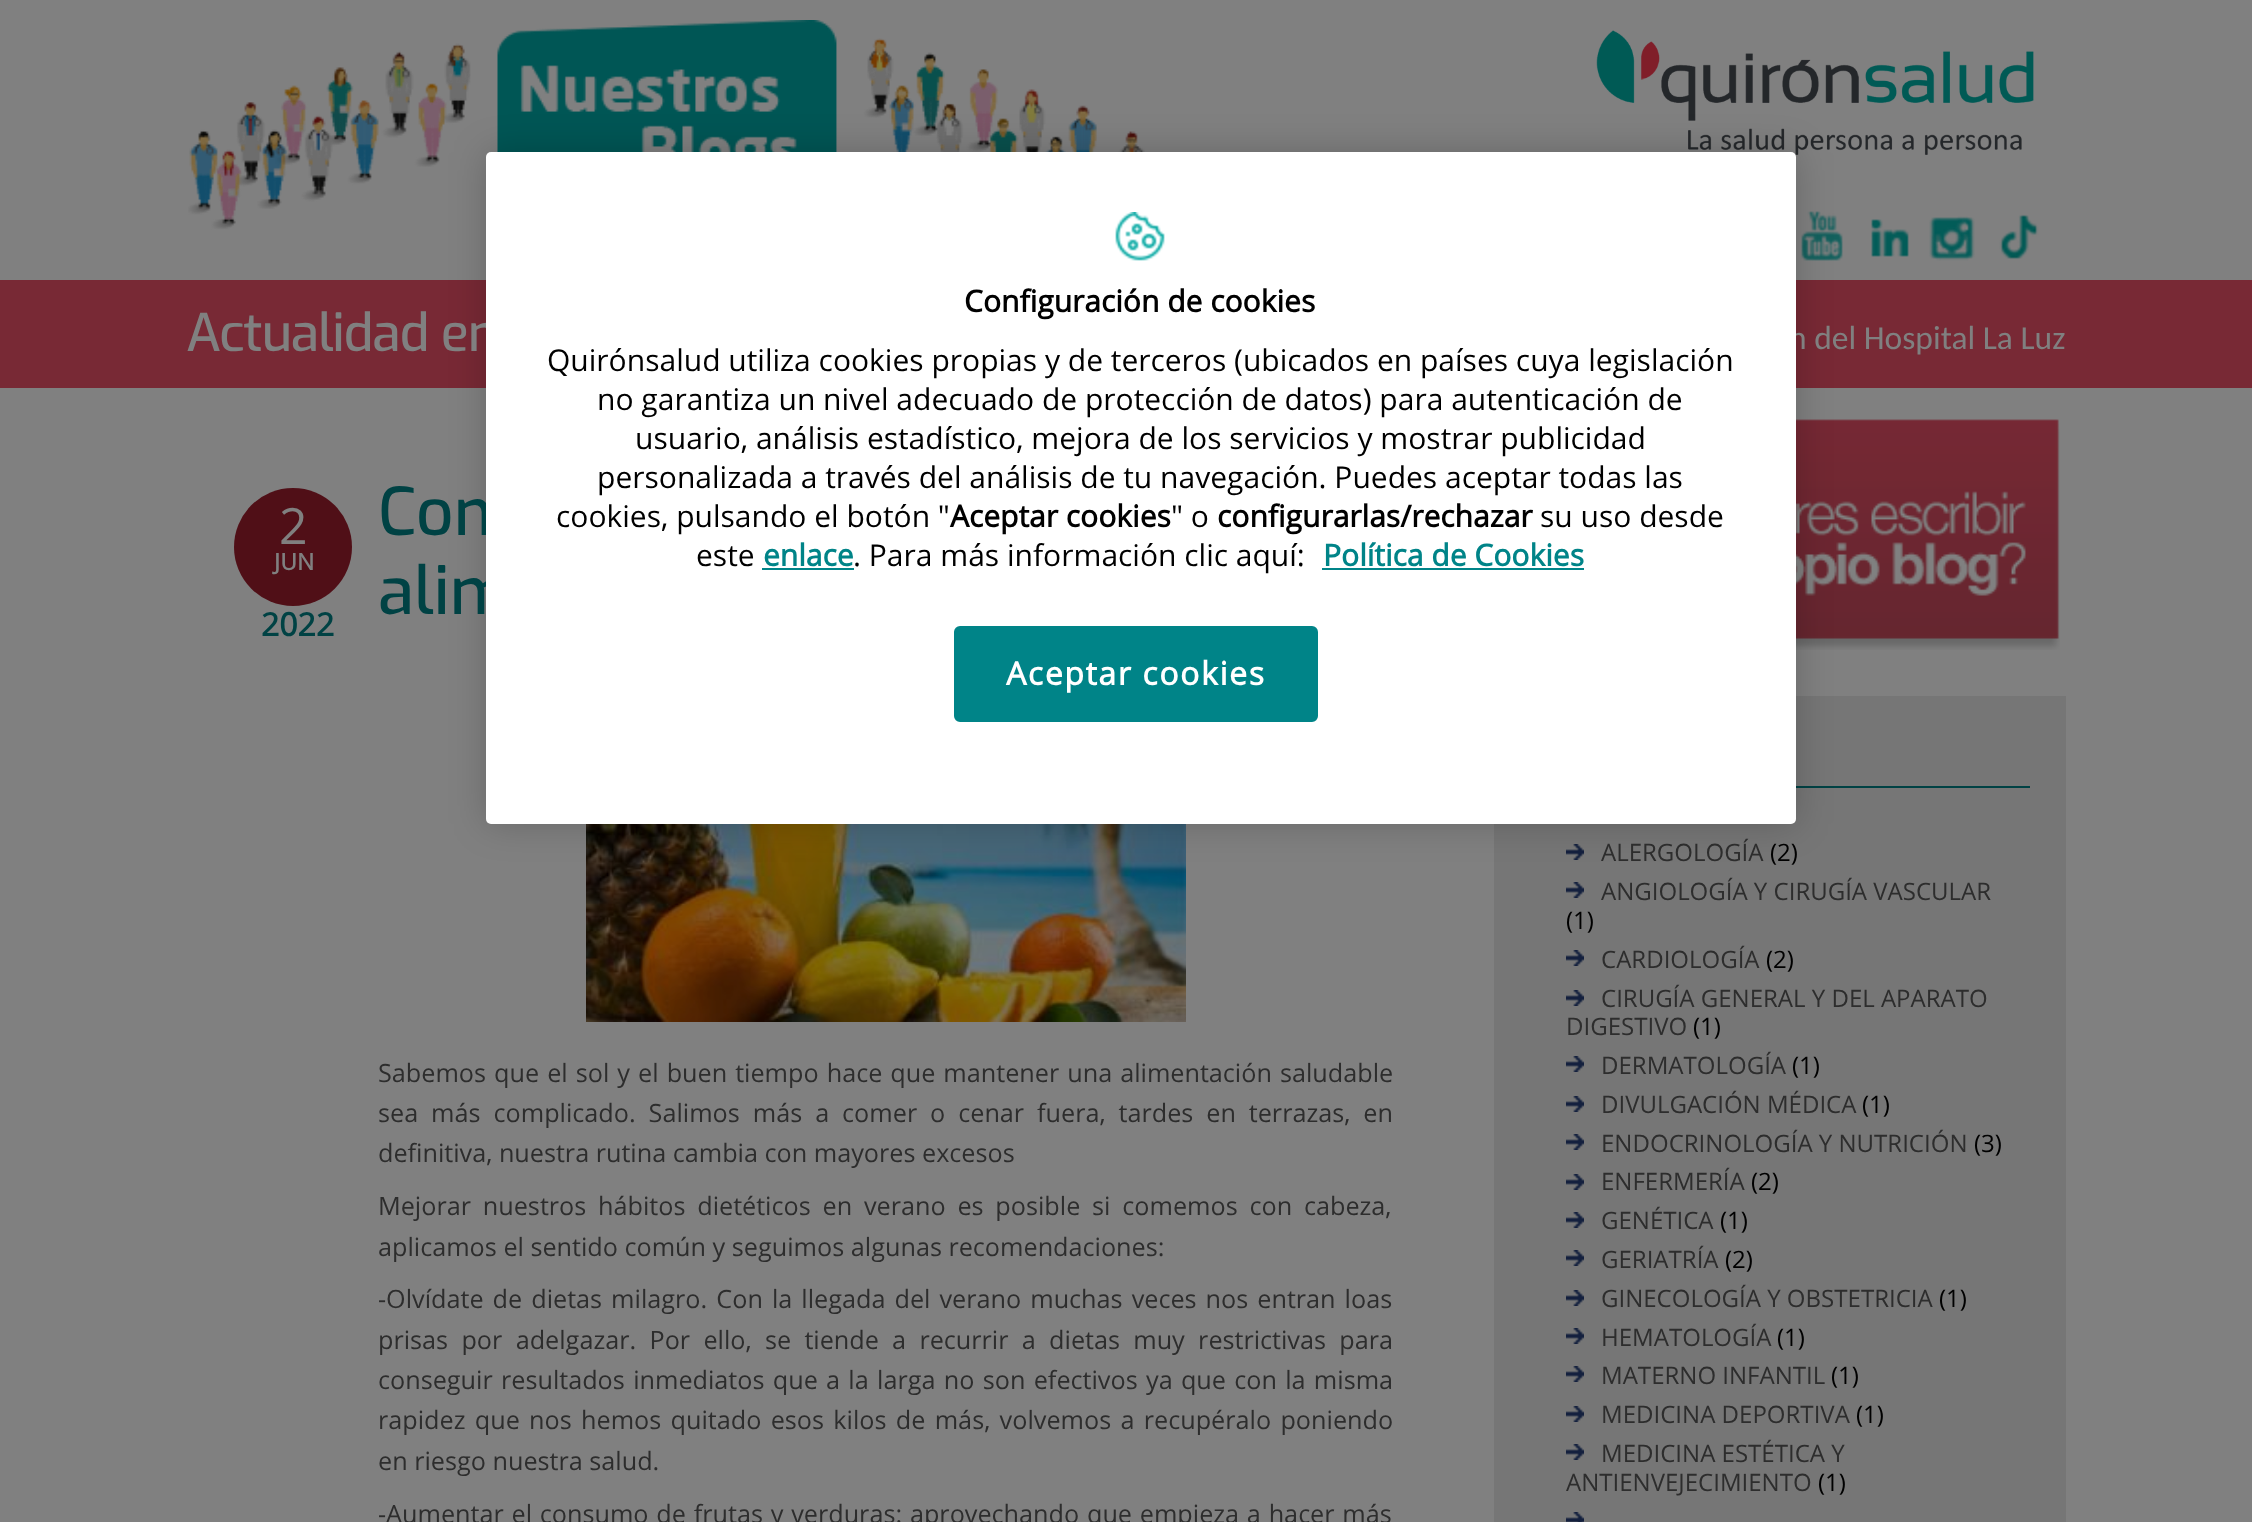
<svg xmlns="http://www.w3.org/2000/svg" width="2252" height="1522">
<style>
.a{font:500 52px Exo;letter-spacing:-1.25px;fill:#808080}
.b{font:33.5px Carlito;fill:#808080}
.c{font:50px Open Sans;fill:#808080}
.d{font:bold 23px Open Sans;fill:#808080}
.e{font:bold 32px Open Sans;fill:#004244}
.f{font:500 66px Exo;fill:#004244}
.g{font:bold 32px Open Sans;letter-spacing:1.6px;fill:#fff}
.h{font:bold 30px Open Sans;fill:#000}
.i{font:bold 30px Open Sans;fill:#008488}
.j{font:30px Open Sans;fill:#000}
.k{font:25.2px Open Sans;fill:#2d2d2d}
.l{font:24px Open Sans;fill:#2d2d2d}
.m{font:24px Open Sans;fill:#000}
</style>
<rect width="100%" height="100%" fill="#808080"/>
<path fill="#782935" d="M0 280h2252v108H0z"/>
<image href="2.png" x="188" y="20" width="957" height="210"/>
<image href="3.png" x="1596" y="30" width="438" height="125"/>
<image href="4.png" x="1801" y="211" width="42" height="50"/>
<image href="8.png" x="586" y="824" width="600" height="198"/>
<image href="9.png" x="1796" y="419" width="264" height="231"/>
<path fill="#767676" d="M1494 696h572v826H1494z"/>
<path fill="#004244" d="M1796 786h234v2H1796z"/>
<image href="10.png" x="1566" y="844" width="18" height="16"/>
<rect fill="#00000033" filter="blur(18px)" x="486" y="152" width="1310" height="672" rx="5"/>
<image href="5.png" x="1871" y="219" width="38" height="38"/>
<image href="6.png" x="1929" y="216" width="46" height="45"/>
<image href="7.png" x="1999" y="214" width="40" height="46"/>
<circle fill="#500f17" cx="293" cy="547" r="59"/>
<image href="10.png" x="1566" y="882" width="18" height="16"/>
<image href="10.png" x="1566" y="950" width="18" height="16"/>
<image href="10.png" x="1566" y="990" width="18" height="16"/>
<image href="10.png" x="1566" y="1056" width="18" height="16"/>
<image href="10.png" x="1566" y="1096" width="18" height="16"/>
<image href="10.png" x="1566" y="1134" width="18" height="16"/>
<image href="10.png" x="1566" y="1174" width="18" height="16"/>
<image href="10.png" x="1566" y="1212" width="18" height="16"/>
<image href="10.png" x="1566" y="1250" width="18" height="16"/>
<image href="10.png" x="1566" y="1290" width="18" height="16"/>
<image href="10.png" x="1566" y="1328" width="18" height="16"/>
<image href="10.png" x="1566" y="1366" width="18" height="16"/>
<image href="10.png" x="1566" y="1406" width="18" height="16"/>
<image href="10.png" x="1566" y="1444" width="18" height="16"/>
<image href="11.png" x="1566" y="1512" width="18" height="10"/>
<text class="a" x="186" y="351">Actualidad en</text>
<text class="b" x="1789" y="349">n del Hospital La Luz</text>
<text class="c" x="279" y="544">2</text>
<text class="d" x="274" y="570">JUN</text>
<text class="e" x="261" y="636">2022</text>
<text class="f" x="378" y="535" word-spacing="103">Con</text>
<text class="f" x="378" y="614">alim</text>
<rect fill="#fff" x="486" y="152" width="1310" height="672" rx="5"/>
<rect fill="#008488" stroke="#008488" stroke-width="2" x="955" y="627" width="362" height="94" rx="5"/>
<text class="g" x="1006" y="685">Aceptar cookies</text>
<text class="h" x="964" y="312">Configuración de cookies</text>
<text class="i" x="1323" y="566">Política de Cookies</text>
<path fill="#008488" d="M1322 568h262v2H1322z"/>
<text class="j" x="853" y="566">. Para más información clic aquí:</text>
<text class="i" x="763" y="566">enlace</text>
<path fill="#008488" d="M762 568h92v2H762z"/>
<text class="j" x="696" y="566">este</text>
<text class="j" x="1540" y="527">su uso desde</text>
<text class="h" x="1217" y="527">configurarlas/rechazar</text>
<text class="j" x="1171" y="527">" o</text>
<text class="h" x="950" y="527">Aceptar cookies</text>
<text class="j" x="556" y="527">cookies, pulsando el botón "</text>
<text class="j" x="597" y="488">personalizada a través del análisis de tu navegación. Puedes aceptar todas las</text>
<text class="j" x="635" y="449">usuario, análisis estadístico, mejora de los servicios y mostrar publicidad</text>
<text class="j" x="597" y="410">no garantiza un nivel adecuado de protección de datos) para autenticación de</text>
<text class="j" x="547" y="371">Quirónsalud utiliza cookies propias y de terceros (ubicados en países cuya legislación</text>
<image href="1.png" x="1115" y="212" width="50" height="49"/>
<text class="k" x="378" y="1082" word-spacing="1.5">Sabemos que el sol y el buen tiempo hace que mantener una alimentación saludable</text>
<text class="k" x="378" y="1122" word-spacing="6.4">sea más complicado. Salimos más a comer o cenar fuera, tardes en terrazas, en</text>
<text class="k" x="378" y="1162">definitiva, nuestra rutina cambia con mayores excesos</text>
<text class="k" x="378" y="1215" word-spacing="5.25">Mejorar nuestros hábitos dietéticos en verano es posible si comemos con cabeza,</text>
<text class="k" x="378" y="1256">aplicamos el sentido común y seguimos algunas recomendaciones:</text>
<text class="k" x="378" y="1308" word-spacing="2.5">-Olvídate de dietas milagro. Con la llegada del verano muchas veces nos entran loas</text>
<text class="k" x="378" y="1349" word-spacing="6.75">prisas por adelgazar. Por ello, se tiende a recurrir a dietas muy restrictivas para</text>
<text class="k" x="378" y="1389" word-spacing="1.75">conseguir resultados inmediatos que a la larga no son efectivos ya que con la misma</text>
<text class="k" x="378" y="1429" word-spacing="2.75">rapidez que nos hemos quitado esos kilos de más, volvemos a recupéralo poniendo</text>
<text class="k" x="378" y="1470">en riesgo nuestra salud.</text>
<text class="k" x="378" y="1523" word-spacing="1.25">-Aumentar el consumo de frutas y verduras: aprovechando que empieza a hacer más</text>
<text class="l" x="1601" y="861">ALERGOLOGÍA</text>
<text class="m" x="1770" y="861">(2)</text>
<text class="l" x="1601" y="900">ANGIOLOGÍA Y CIRUGÍA VASCULAR</text>
<text class="m" x="1566" y="929">(1)</text>
<text class="l" x="1601" y="968">CARDIOLOGÍA</text>
<text class="m" x="1766" y="968">(2)</text>
<text class="l" x="1601" y="1007">CIRUGÍA GENERAL Y DEL APARATO</text>
<text class="l" x="1566" y="1035">DIGESTIVO</text>
<text class="m" x="1693" y="1035">(1)</text>
<text class="l" x="1601" y="1074">DERMATOLOGÍA</text>
<text class="m" x="1792" y="1074">(1)</text>
<text class="l" x="1601" y="1113">DIVULGACIÓN MÉDICA</text>
<text class="m" x="1862" y="1113">(1)</text>
<text class="l" x="1601" y="1152">ENDOCRINOLOGÍA Y NUTRICIÓN</text>
<text class="m" x="1974" y="1152">(3)</text>
<text class="l" x="1601" y="1190">ENFERMERÍA</text>
<text class="m" x="1751" y="1190">(2)</text>
<text class="l" x="1601" y="1229">GENÉTICA</text>
<text class="m" x="1720" y="1229">(1)</text>
<text class="l" x="1601" y="1268">GERIATRÍA</text>
<text class="m" x="1725" y="1268">(2)</text>
<text class="l" x="1601" y="1307">GINECOLOGÍA Y OBSTETRICIA</text>
<text class="m" x="1939" y="1307">(1)</text>
<text class="l" x="1601" y="1346">HEMATOLOGÍA</text>
<text class="m" x="1777" y="1346">(1)</text>
<text class="l" x="1601" y="1384">MATERNO INFANTIL</text>
<text class="m" x="1831" y="1384">(1)</text>
<text class="l" x="1601" y="1423">MEDICINA DEPORTIVA</text>
<text class="m" x="1856" y="1423">(1)</text>
<text class="l" x="1601" y="1462">MEDICINA ESTÉTICA Y</text>
<text class="l" x="1566" y="1491">ANTIENVEJECIMIENTO</text>
<text class="m" x="1818" y="1491">(1)</text>
</svg>
